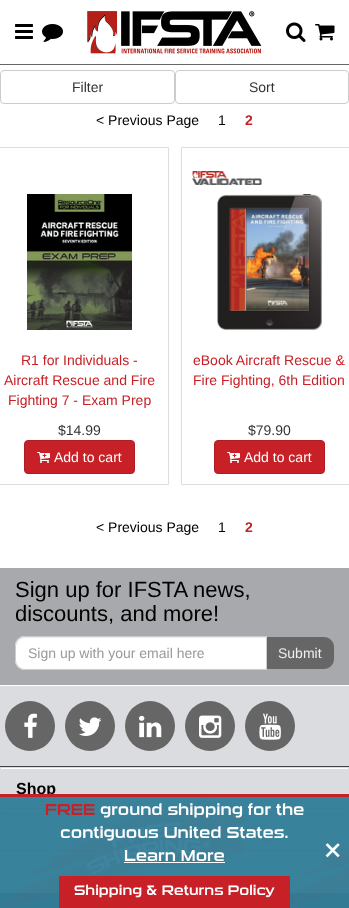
<svg xmlns="http://www.w3.org/2000/svg" width="349" height="908">
<style>
.a{font:14px Liberation Sans;fill:#333}
.b{font:14px Liberation Sans;fill:#000}
.c{font:bold 14px Liberation Sans;fill:#c72026}
.d{font:14px Liberation Sans;fill:#c72026}
.e{font:14px Liberation Sans;fill:#fff}
.f{font:22px Liberation Sans;fill:#000}
.g{font:14px Liberation Sans;fill:#999}
.h{font:14px Liberation Sans;fill:#eee}
.i{font:bold 16px Liberation Sans;fill:#000}
.j{font:14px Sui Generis;fill:#fff}
.k{font:36px Sui Generis;fill:#fff}
.l{font:16px Sui Generis;fill:#fff}
.m{font:16px Sui Generis;fill:#c72026}
</style>
<rect width="100%" height="100%" fill="#fff"/>
<path fill="#666" d="M0 64h349v1H0z"/>
<image href="1.png" x="15" y="24" width="18" height="15"/>
<image href="2.png" x="42" y="24" width="21" height="18"/>
<image href="3.png" x="87" y="11" width="175" height="43"/>
<image href="4.png" x="286" y="22" width="20" height="20"/>
<image href="5.png" x="315" y="24" width="20" height="17"/>
<rect fill="none" stroke="#ccc" x="0.5" y="70.5" width="174" height="33" rx="3.5"/>
<rect fill="none" stroke="#ccc" x="175.5" y="70.5" width="173" height="33" rx="3.5"/>
<path fill="none" stroke="#ddd" d="M-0.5 147.5h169v337H-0.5z"/>
<image href="6.png" x="27" y="194" width="105" height="136"/>
<rect fill="#c72026" stroke="#b11c22" x="24.5" y="440.5" width="110" height="33" rx="3.5"/>
<image href="7.png" x="37" y="452" width="13" height="11"/>
<path fill="none" stroke="#ddd" d="M181.5 147.5h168v337H181.5z"/>
<image href="8.png" x="192" y="171" width="70" height="14"/>
<image href="9.png" x="217" y="194" width="105" height="136"/>
<rect fill="#c72026" stroke="#b11c22" x="214.5" y="440.5" width="110" height="33" rx="3.5"/>
<image href="7.png" x="227" y="452" width="13" height="11"/>
<path fill="#a7a9ac" d="M0 568h349v117H0z"/>
<path fill="#666" d="M266 637h58c5.5 0 10 4.5 10 10v12c0 5.5-4.5 10-10 10h-58z"/>
<path fill="#fff" d="M25 636h242v34h-242c-5.5 0-10-4.5-10-10v-14c0-5.5 4.5-10 10-10z"/>
<path fill="#ececec" d="M25 638h241v-1h-241c-5 0-9 4-9 9v1c0-5 4-9 9-9z"/>
<path fill="none" stroke="#ccc" d="M25 636.5h241.5v33h-241.5c-5 0-9.5-4.5-9.5-9.5v-14c0-5 4.5-9.5 9.5-9.5z"/>
<path fill="#dbdcdf" d="M0 686h349v80H0z"/>
<path fill="#444344" d="M0 766h349v1H0z"/>
<circle fill="#666" cx="30" cy="726" r="25"/>
<image href="11.png" x="24" y="713" width="13" height="25"/>
<circle fill="#666" cx="90" cy="726" r="25"/>
<image href="12.png" x="79" y="717" width="23" height="19"/>
<circle fill="#666" cx="150" cy="726" r="25"/>
<image href="13.png" x="139" y="715" width="23" height="23"/>
<circle fill="#666" cx="210" cy="726" r="25"/>
<image href="14.png" x="199" y="715" width="23" height="23"/>
<circle fill="#666" cx="270" cy="726" r="25"/>
<image href="15.png" x="259" y="713" width="22" height="27"/>
<path fill="#dbdcdf" d="M0 767h349v84H0z"/>
<path fill="#fff" d="M1 768h347v1H1z"/>
<path fill="#babbbd" d="M1 808h347v1H1z"/>
<path fill="#fff" d="M1 810h347v1H1z"/>
<path fill="#babbbd" d="M1 850h347v1H1z"/>
<path fill="#666" d="M0 893h349v15H0z"/>
<path fill="#0000000d" filter="blur(0.5px)" d="M0 852h349v42H0z"/>
<path fill="#dbdcdf" d="M0 851h349v42H0z"/>
<path fill="#fff" d="M1 852h347v1H1z"/>
<path fill="#babbbd" d="M1 891h347v1H1z"/>
<text class="a" x="72" y="92">Filter</text>
<text class="a" x="249" y="92">Sort</text>
<text class="b" x="96" y="125">&lt; Previous Page</text>
<text class="b" x="218" y="125">1</text>
<text class="c" x="245" y="125">2</text>
<text class="d" x="21" y="365">R1 for Individuals -</text>
<text class="d" x="4" y="385">Aircraft Rescue and Fire</text>
<text class="d" x="8" y="405">Fighting 7 - Exam Prep</text>
<text class="a" x="58" y="435">$14.99</text>
<text class="e" x="54" y="462">Add to cart</text>
<text class="d" x="193" y="365">eBook Aircraft Rescue &amp;</text>
<text class="d" x="193" y="385">Fire Fighting, 6th Edition</text>
<text class="a" x="248" y="435">$79.90</text>
<text class="e" x="244" y="462">Add to cart</text>
<text class="b" x="96" y="532">&lt; Previous Page</text>
<text class="b" x="218" y="532">1</text>
<text class="c" x="245" y="532">2</text>
<text class="f" x="15" y="597">Sign up for IFSTA news,</text>
<text class="f" x="15" y="621">discounts, and more!</text>
<text class="g" x="28" y="658">Sign up with your email here</text>
<text class="h" x="278" y="658">Submit</text>
<text class="i" x="16" y="794">Shop</text>
<path fill="#307c98f2" d="M0 797h349v111H0z"/>
<image href="10.png" x="6" y="798" width="343" height="108"/>
<path fill="#c72026" d="M59 876h231v32H59z"/>
<text class="j" x="74" y="895">Shipping &amp; Returns Policy</text>
<path fill="#c72026" d="M0 794h349v3H0z"/>
<text class="k" x="322" y="863">×</text>
<text class="l" x="124" y="861">Learn More</text>
<path fill="#fff" d="M124 862h101v1H124z"/>
<text class="l" x="60" y="838">contiguous United States.</text>
<text class="l" x="100" y="815">ground shipping for the</text>
<text class="m" x="45" y="815">FREE</text>
</svg>
